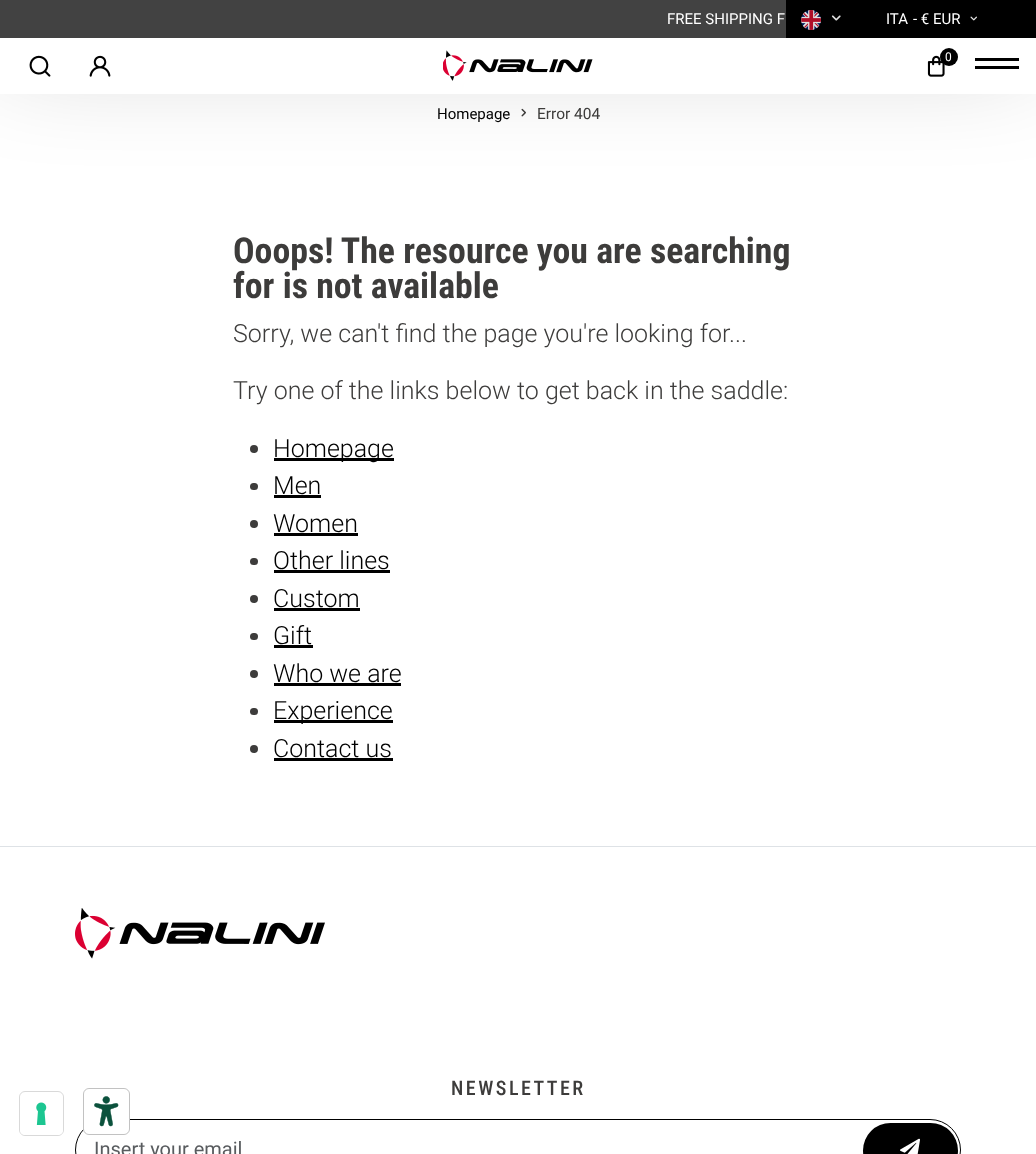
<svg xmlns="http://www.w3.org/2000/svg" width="1036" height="1154">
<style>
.a{font:15px Roboto;fill:#fff}
.b{font:12px Roboto;fill:#fff}
.c{font:15px Roboto;fill:#000}
.d{font:15.5px Roboto;fill:#3d3c3b}
.e{font:bold 35.8px Roboto Condensed;fill:#3d3c3b}
.f{font:300 25px Roboto;fill:#3d3c3b}
.g{font:300 25px Roboto;fill:#000}
.h{font:500 20px Roboto Condensed;letter-spacing:2.5px;fill:#3d3c3b}
.i{font:20px Roboto;fill:#595c5f}
</style>
<defs>
<clipPath id="clip1"><path d="M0 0h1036v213h-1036zm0 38h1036v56h-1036z" clip-rule="evenodd"/></clipPath>
</defs>
<rect width="100%" height="100%" fill="#fff"/>
<path fill="#000" d="M786 0h250v38H786z"/>
<image href="1.png" x="801" y="10" width="20" height="20"/>
<image href="2.png" x="831" y="15" width="10" height="6"/>
<image href="3.png" x="970" y="16" width="7" height="5"/>
<image href="8.png" x="521" y="108" width="5" height="9"/>
<g clip-path="url(#clip1)">
<path fill="#0000004f" filter="blur(56px)" d="M0 -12h1036v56H0z"/>
</g>
<path fill="#424242" d="M0 0h786v38H0z"/>
<image href="4.png" x="29" y="55" width="22" height="22"/>
<image href="5.png" x="89" y="55" width="22" height="22"/>
<image href="6.png" x="443" y="50" width="150" height="31"/>
<image href="7.png" x="927" y="55" width="18" height="22"/>
<circle fill="#000" cx="949" cy="57" r="9"/>
<path fill="#000" d="M975 58h44v3H975z"/>
<path fill="#000" d="M975 66h44v3H975z"/>
<circle fill="#3d3c3b" cx="254" cy="449" r="4"/>
<path fill="#000" d="M274 458h120v3H274z"/>
<rect fill="#3d3c3b" x="250" y="483" width="8" height="7" rx="3.5"/>
<path fill="#000" d="M274 495h47v3H274z"/>
<circle fill="#3d3c3b" cx="254" cy="524" r="4"/>
<path fill="#000" d="M274 533h84v3H274z"/>
<rect fill="#3d3c3b" x="250" y="558" width="8" height="7" rx="3.5"/>
<path fill="#000" d="M274 570h116v3H274z"/>
<circle fill="#3d3c3b" cx="254" cy="599" r="4"/>
<path fill="#000" d="M274 608h86v3H274z"/>
<rect fill="#3d3c3b" x="250" y="633" width="8" height="7" rx="3.5"/>
<path fill="#000" d="M274 645h39v3H274z"/>
<circle fill="#3d3c3b" cx="254" cy="674" r="4"/>
<path fill="#000" d="M274 683h127v3H274z"/>
<rect fill="#3d3c3b" x="250" y="708" width="8" height="7" rx="3.5"/>
<path fill="#000" d="M274 720h119v3H274z"/>
<circle fill="#3d3c3b" cx="254" cy="749" r="4"/>
<path fill="#000" d="M274 758h119v3H274z"/>
<path fill="#dee2e6" d="M0 846h1036v1H0z"/>
<image href="9.png" x="75" y="908" width="250" height="51"/>
<rect fill="none" stroke="#000" x="75.5" y="1119.5" width="885" height="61" rx="30.5"/>
<rect fill="#000" x="863" y="1123" width="95" height="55" rx="27.5"/>
<image href="10.png" x="900" y="1138" width="20" height="16"/>
<rect fill="none" stroke="#d9d9d9" x="19.5" y="1091.5" width="44" height="44" rx="5.5"/>
<rect fill="#fff" x="20" y="1093" width="43" height="42" rx="5"/>
<image href="11.png" x="36" y="1102" width="11" height="23"/>
<rect fill="#fff" x="83" y="1088" width="47" height="47" rx="6"/>
<image href="12.png" x="94" y="1096" width="25" height="31"/>
<rect fill="none" stroke="#0000003d" x="83.5" y="1088.5" width="46" height="46" rx="5.5"/>
<text class="a" x="667" y="24">FREE SHIPPING F</text>
<text class="a" x="886" y="24">ITA</text>
<text class="a" x="913" y="24">- € EUR</text>
<text class="b" x="945" y="61">0</text>
<text class="c" x="437" y="119">Homepage</text>
<text class="d" x="537" y="119">Error 404</text>
<text class="e" x="233" y="263">Ooops! The resource you are searching</text>
<text class="e" x="233" y="298">for is not available</text>
<text class="f" x="233" y="342">Sorry, we can't find the page you're looking for...</text>
<text class="f" x="233" y="399">Try one of the links below to get back in the saddle:</text>
<text class="g" x="273" y="457">Homepage</text>
<text class="g" x="273" y="494">Men</text>
<text class="g" x="273" y="532">Women</text>
<text class="g" x="273" y="569">Other lines</text>
<text class="g" x="273" y="607">Custom</text>
<text class="g" x="273" y="644">Gift</text>
<text class="g" x="273" y="682">Who we are</text>
<text class="g" x="273" y="719">Experience</text>
<text class="g" x="273" y="757">Contact us</text>
<text class="h" x="451" y="1095">NEWSLETTER</text>
<text class="i" x="94" y="1156">Insert your email</text>
</svg>
